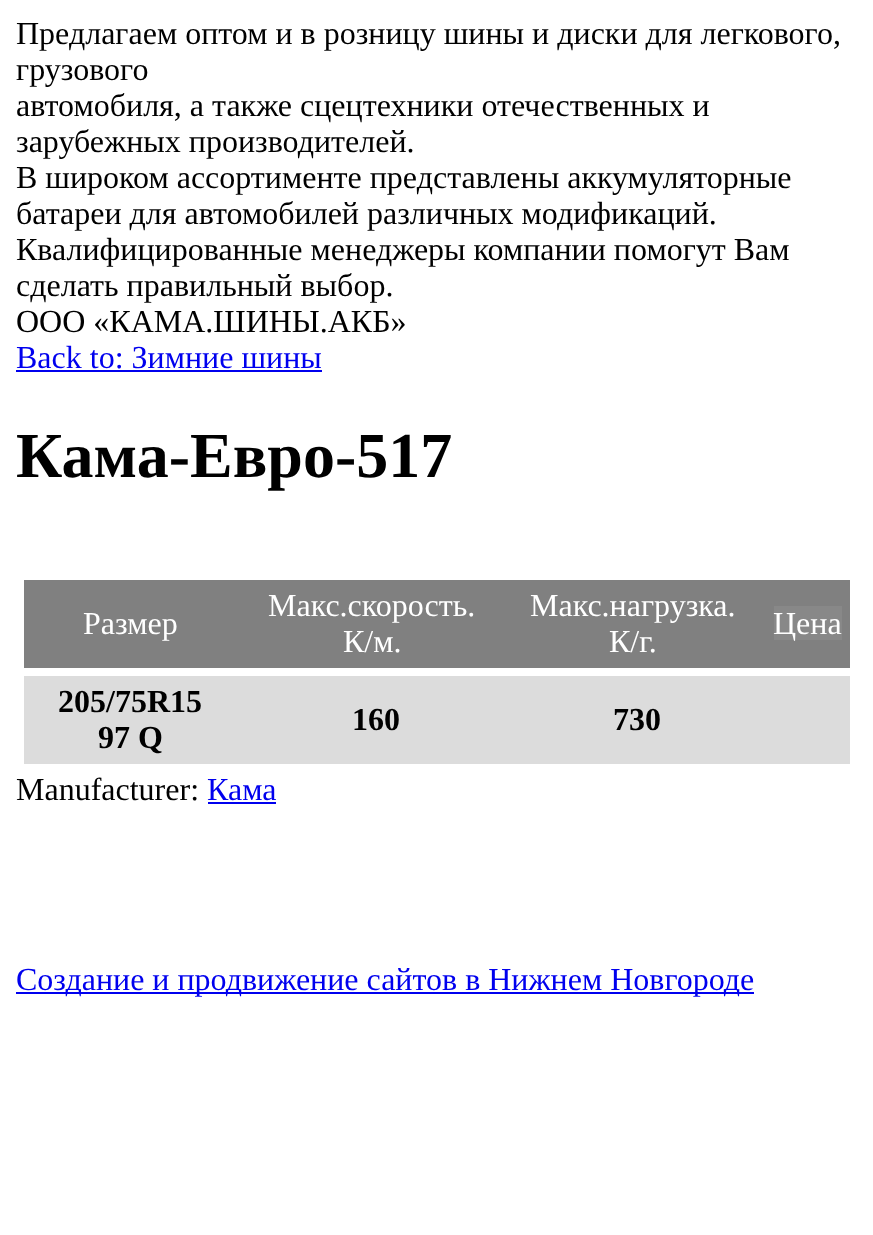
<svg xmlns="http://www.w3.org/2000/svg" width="873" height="1235">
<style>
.a{font:32px Liberation Serif;fill:#000}
.b{font:32px Liberation Serif;fill:#00e}
.c{font:bold 64px Liberation Serif;fill:#000}
.d{font:32px Liberation Serif;fill:#fff}
.e{font:bold 32px Liberation Serif;fill:#000}
</style>
<rect width="100%" height="100%" fill="#fff"/>
<path fill="#00e" d="M16 370h306v2H16z"/>
<path fill="#808080" d="M24 580h826v88H24z"/>
<path fill="#888" d="M774 606h68v34H774z"/>
<path fill="#dcdcdc" d="M24 676h826v88H24z"/>
<path fill="#00e" d="M208 802h68v2H208z"/>
<path fill="#00e" d="M16 992h738v2H16z"/>
<text class="a" x="16" y="44">Предлагаем оптом и в розницу шины и диски для легкового,</text>
<text class="a" x="16" y="80">грузового</text>
<text class="a" x="16" y="116">автомобиля, а также сцецтехники отечественных и</text>
<text class="a" x="16" y="152">зарубежных производителей.</text>
<text class="a" x="16" y="188">В широком ассортименте представлены аккумуляторные</text>
<text class="a" x="16" y="224">батареи для автомобилей различных модификаций.</text>
<text class="a" x="16" y="260">Квалифицированные менеджеры компании помогут Вам</text>
<text class="a" x="16" y="296">сделать правильный выбор.</text>
<text class="a" x="16" y="332">ООО «КАМА.ШИНЫ.АКБ»</text>
<text class="b" x="16" y="368">Back to: Зимние шины</text>
<text class="c" x="16" y="477">Кама-Евро-517</text>
<text class="d" x="83" y="634">Размер</text>
<text class="d" x="268" y="616">Макс.скорость.</text>
<text class="d" x="343" y="652">К/м.</text>
<text class="d" x="530" y="616">Макс.нагрузка.</text>
<text class="d" x="609" y="652">К/г.</text>
<text class="d" x="773" y="634">Цена</text>
<text class="e" x="58" y="712">205/75R15</text>
<text class="e" x="98" y="748">97 Q</text>
<text class="e" x="352" y="730">160</text>
<text class="e" x="613" y="730">730</text>
<text class="a" x="16" y="800">Manufacturer:</text>
<text class="b" x="207" y="800">Кама</text>
<text class="b" x="16" y="990">Создание и продвижение сайтов в Нижнем Новгороде</text>
</svg>
